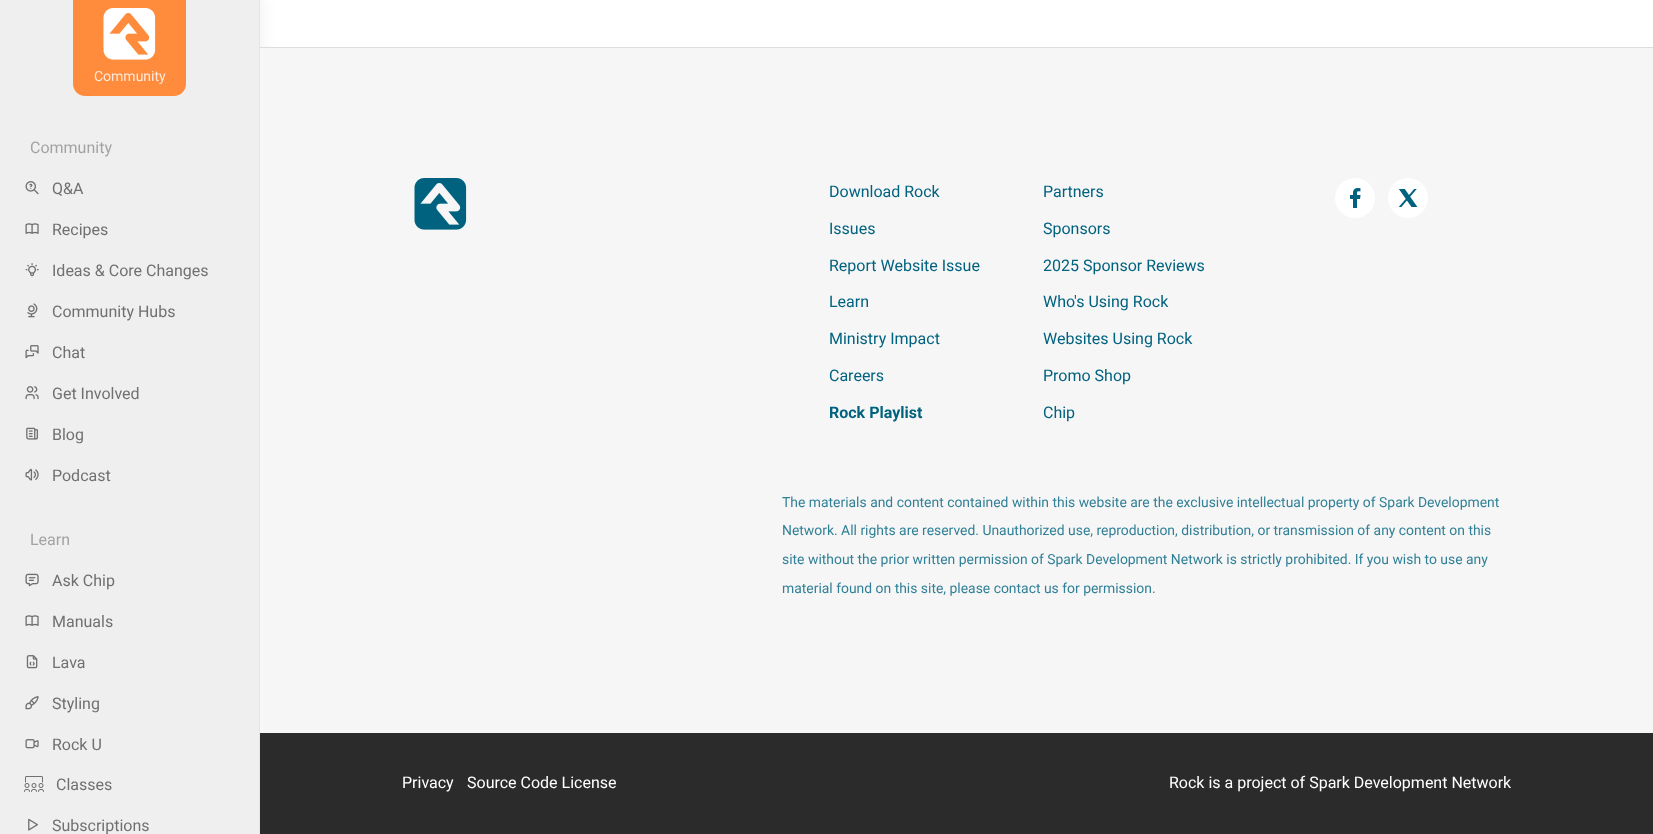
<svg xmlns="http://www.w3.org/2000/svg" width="1653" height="834">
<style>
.a{font:14px Roboto;fill:#ffe8d8}
.b{font:16px Roboto;fill:#a3a3a3}
.c{font:16px Roboto;fill:#707070}
.d{font:16px Roboto;fill:#00627f}
.e{font:bold 16px Roboto;fill:#00627f}
.f{font:13.92px Roboto;fill:#318097}
.g{font:16px Roboto;fill:#fff}
</style>
<rect width="100%" height="100%" fill="#fff"/>
<path fill="#0000000d" filter="blur(7.5px)" d="M-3 -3h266v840H-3z"/>
<path fill="#efefef" d="M0 0h259v834H0z"/>
<path fill="#e5e5e5" d="M259 0h1v834H259z"/>
<path fill="#ff8c3d" d="M73 0h113v84c0 6.5-5.5 12-12 12h-89c-6.5 0-12-5.5-12-12z"/>
<image href="1.png" x="103" y="8" width="53" height="52"/>
<image href="2.png" x="25" y="181" width="14" height="14"/>
<image href="3.png" x="25" y="223" width="14" height="11"/>
<image href="4.png" x="25" y="263" width="14" height="14"/>
<image href="5.png" x="27" y="303" width="11" height="15"/>
<image href="6.png" x="25" y="345" width="14" height="14"/>
<image href="7.png" x="25" y="386" width="14" height="14"/>
<image href="8.png" x="26" y="427" width="12" height="13"/>
<image href="9.png" x="25" y="468" width="14" height="13"/>
<image href="10.png" x="25" y="573" width="14" height="14"/>
<image href="3.png" x="25" y="615" width="14" height="11"/>
<image href="11.png" x="26" y="655" width="12" height="14"/>
<image href="12.png" x="25" y="696" width="14" height="14"/>
<image href="13.png" x="25" y="739" width="14" height="10"/>
<image href="14.png" x="24" y="776" width="20" height="16"/>
<image href="15.png" x="28" y="818" width="10" height="13"/>
<path fill="#f6f6f6" d="M263 48h1390v685H263z"/>
<path fill="#dedcdc" d="M260 47h1393v1H260z"/>
<image href="16.png" x="414" y="178" width="53" height="52"/>
<circle fill="#fff" cx="1355" cy="198" r="20"/>
<image href="17.png" x="1350" y="188" width="11" height="20"/>
<circle fill="#fff" cx="1408" cy="198" r="20"/>
<image href="18.png" x="1398" y="189" width="20" height="18"/>
<path fill="#2b2b2b" d="M260 733h1393v101H260z"/>
<text class="a" x="94" y="81">Community</text>
<text class="b" x="30" y="153">Community</text>
<text class="c" x="52" y="194">Q&amp;A</text>
<text class="c" x="52" y="235">Recipes</text>
<text class="c" x="52" y="276">Ideas &amp; Core Changes</text>
<text class="c" x="52" y="317">Community Hubs</text>
<text class="c" x="52" y="358">Chat</text>
<text class="c" x="52" y="399">Get Involved</text>
<text class="c" x="52" y="440">Blog</text>
<text class="c" x="52" y="481">Podcast</text>
<text class="b" x="30" y="545">Learn</text>
<text class="c" x="52" y="586">Ask Chip</text>
<text class="c" x="52" y="627">Manuals</text>
<text class="c" x="52" y="668">Lava</text>
<text class="c" x="52" y="709">Styling</text>
<text class="c" x="52" y="750">Rock U</text>
<text class="c" x="56" y="790">Classes</text>
<text class="c" x="52" y="831">Subscriptions</text>
<text class="d" x="829" y="197">Download Rock</text>
<text class="d" x="829" y="234">Issues</text>
<text class="d" x="829" y="271">Report Website Issue</text>
<text class="d" x="829" y="307">Learn</text>
<text class="d" x="829" y="344">Ministry Impact</text>
<text class="d" x="829" y="381">Careers</text>
<text class="e" x="829" y="418">Rock Playlist</text>
<text class="d" x="1043" y="197">Partners</text>
<text class="d" x="1043" y="234">Sponsors</text>
<text class="d" x="1043" y="271">2025 Sponsor Reviews</text>
<text class="d" x="1043" y="307">Who's Using Rock</text>
<text class="d" x="1043" y="344">Websites Using Rock</text>
<text class="d" x="1043" y="381">Promo Shop</text>
<text class="d" x="1043" y="418">Chip</text>
<text class="f" x="782" y="507">The materials and content contained within this website are the exclusive intellectual property of Spark Development</text>
<text class="f" x="782" y="535">Network. All rights are reserved. Unauthorized use, reproduction, distribution, or transmission of any content on this</text>
<text class="f" x="782" y="564">site without the prior written permission of Spark Development Network is strictly prohibited. If you wish to use any</text>
<text class="f" x="782" y="593">material found on this site, please contact us for permission.</text>
<text class="g" x="402" y="788">Privacy</text>
<text class="g" x="467" y="788">Source Code License</text>
<text class="g" x="1169" y="788">Rock is a project of Spark Development Network</text>
</svg>
